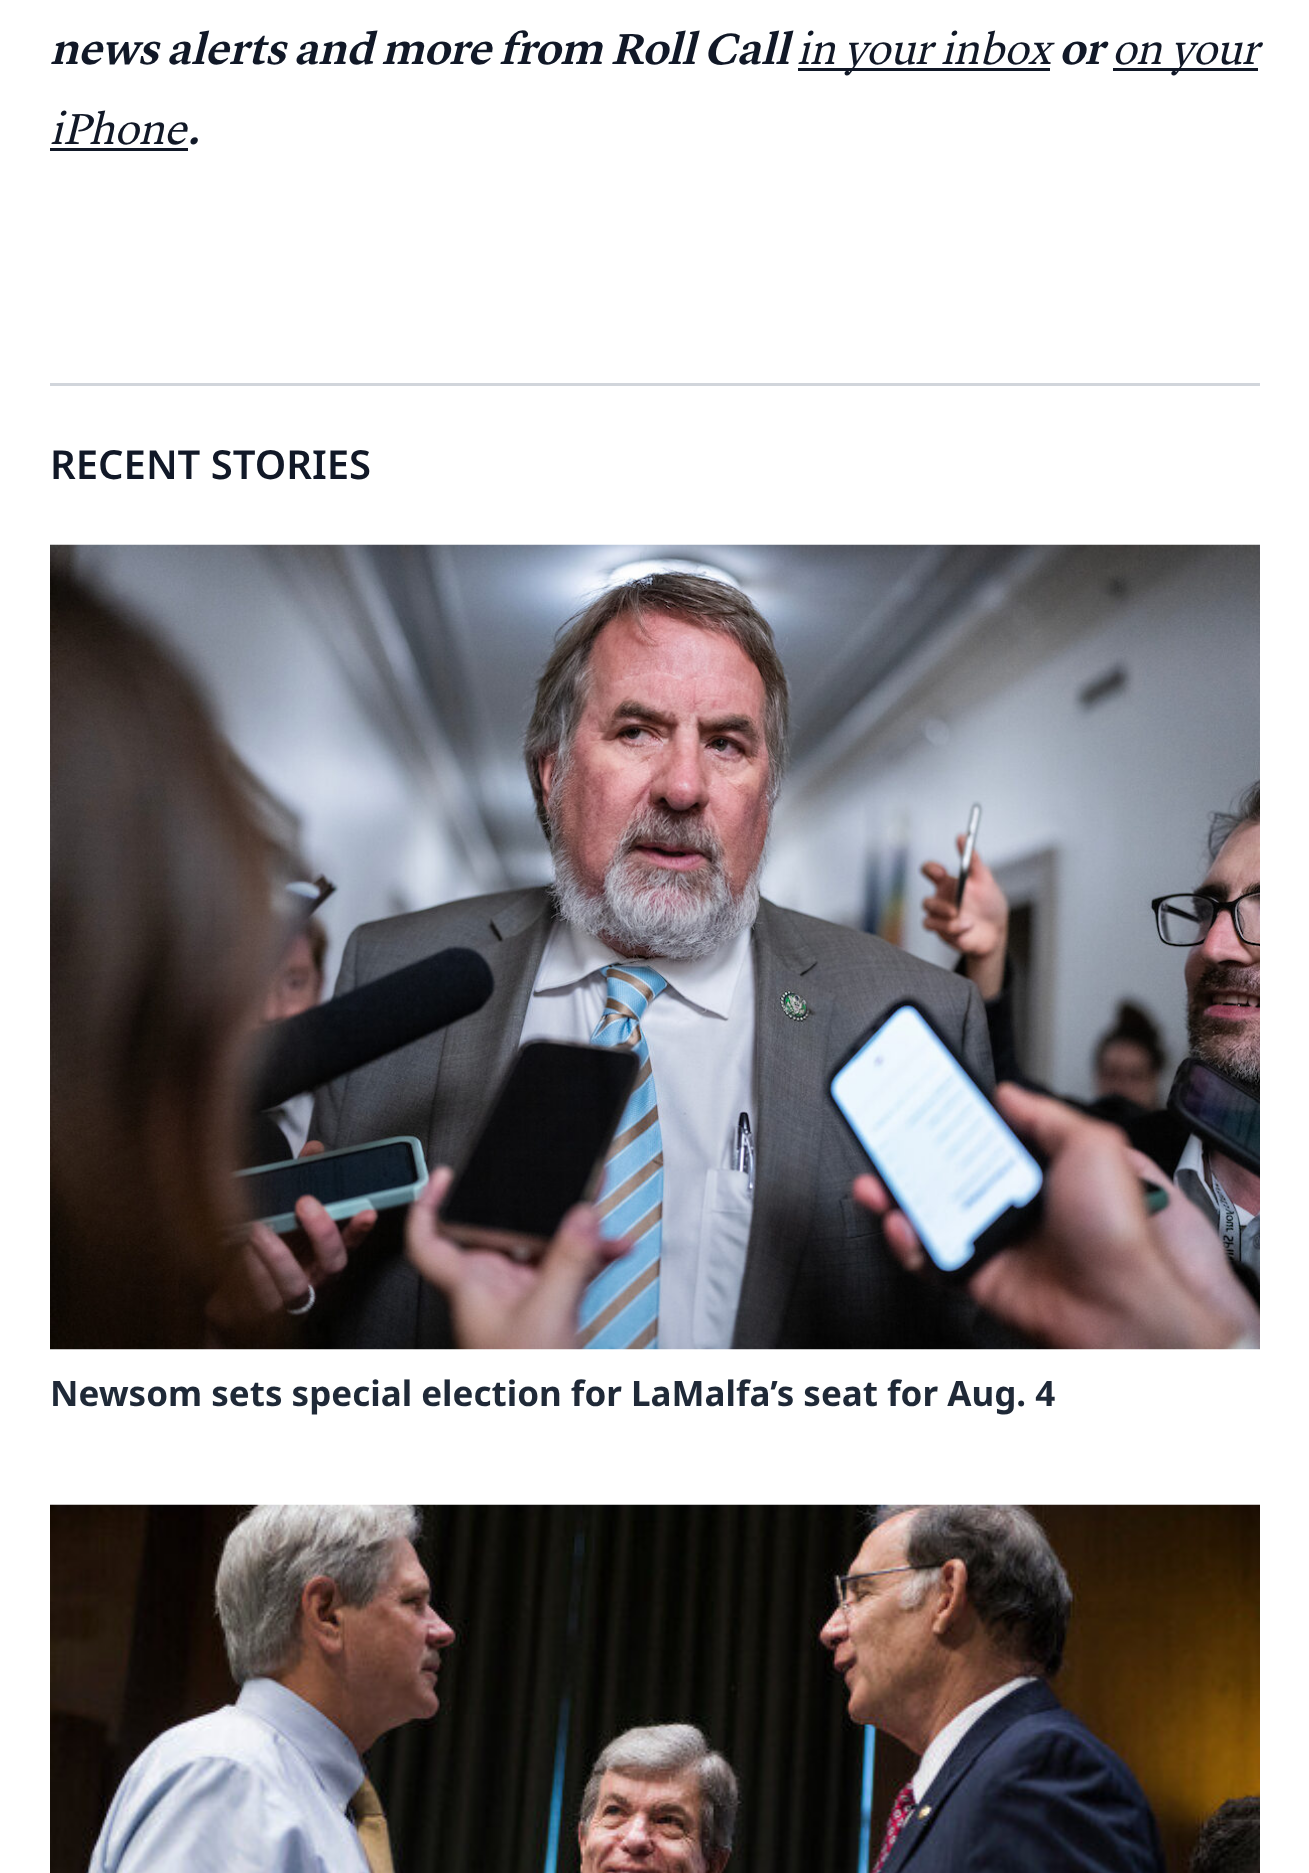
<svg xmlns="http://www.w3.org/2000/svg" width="1309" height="1873">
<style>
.a{font:italic 600 45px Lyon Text;fill:#111827}
.b{font:italic 45px Lyon Text;fill:#111827}
.c{font:600 40px Noto Sans;fill:#111827}
.d{font:bold 35px Noto Sans;fill:#1f2937}
</style>
<rect width="100%" height="100%" fill="#fff"/>
<path fill="#111827" d="M798 68h252v3H798z"/>
<path fill="#111827" d="M1113 68h145v3H1113z"/>
<path fill="#111827" d="M50 148h138v3H50z"/>
<path fill="#d1d5db" d="M50 383h1210v3H50z"/>
<image href="1.png" x="50" y="544" width="1210" height="806"/>
<image href="2.png" x="50" y="1504" width="1210" height="369"/>
<text class="a" x="50" y="64">news alerts and more from Roll Call</text>
<text class="b" x="797" y="64">in your inbox</text>
<text class="a" x="1059" y="64">or</text>
<text class="b" x="1112" y="64">on your</text>
<text class="b" x="50" y="144">iPhone</text>
<text class="a" x="187" y="144">.</text>
<text class="c" x="50" y="479">RECENT STORIES</text>
<text class="d" x="50" y="1406">Newsom sets special election for LaMalfa’s seat for Aug. 4</text>
</svg>
